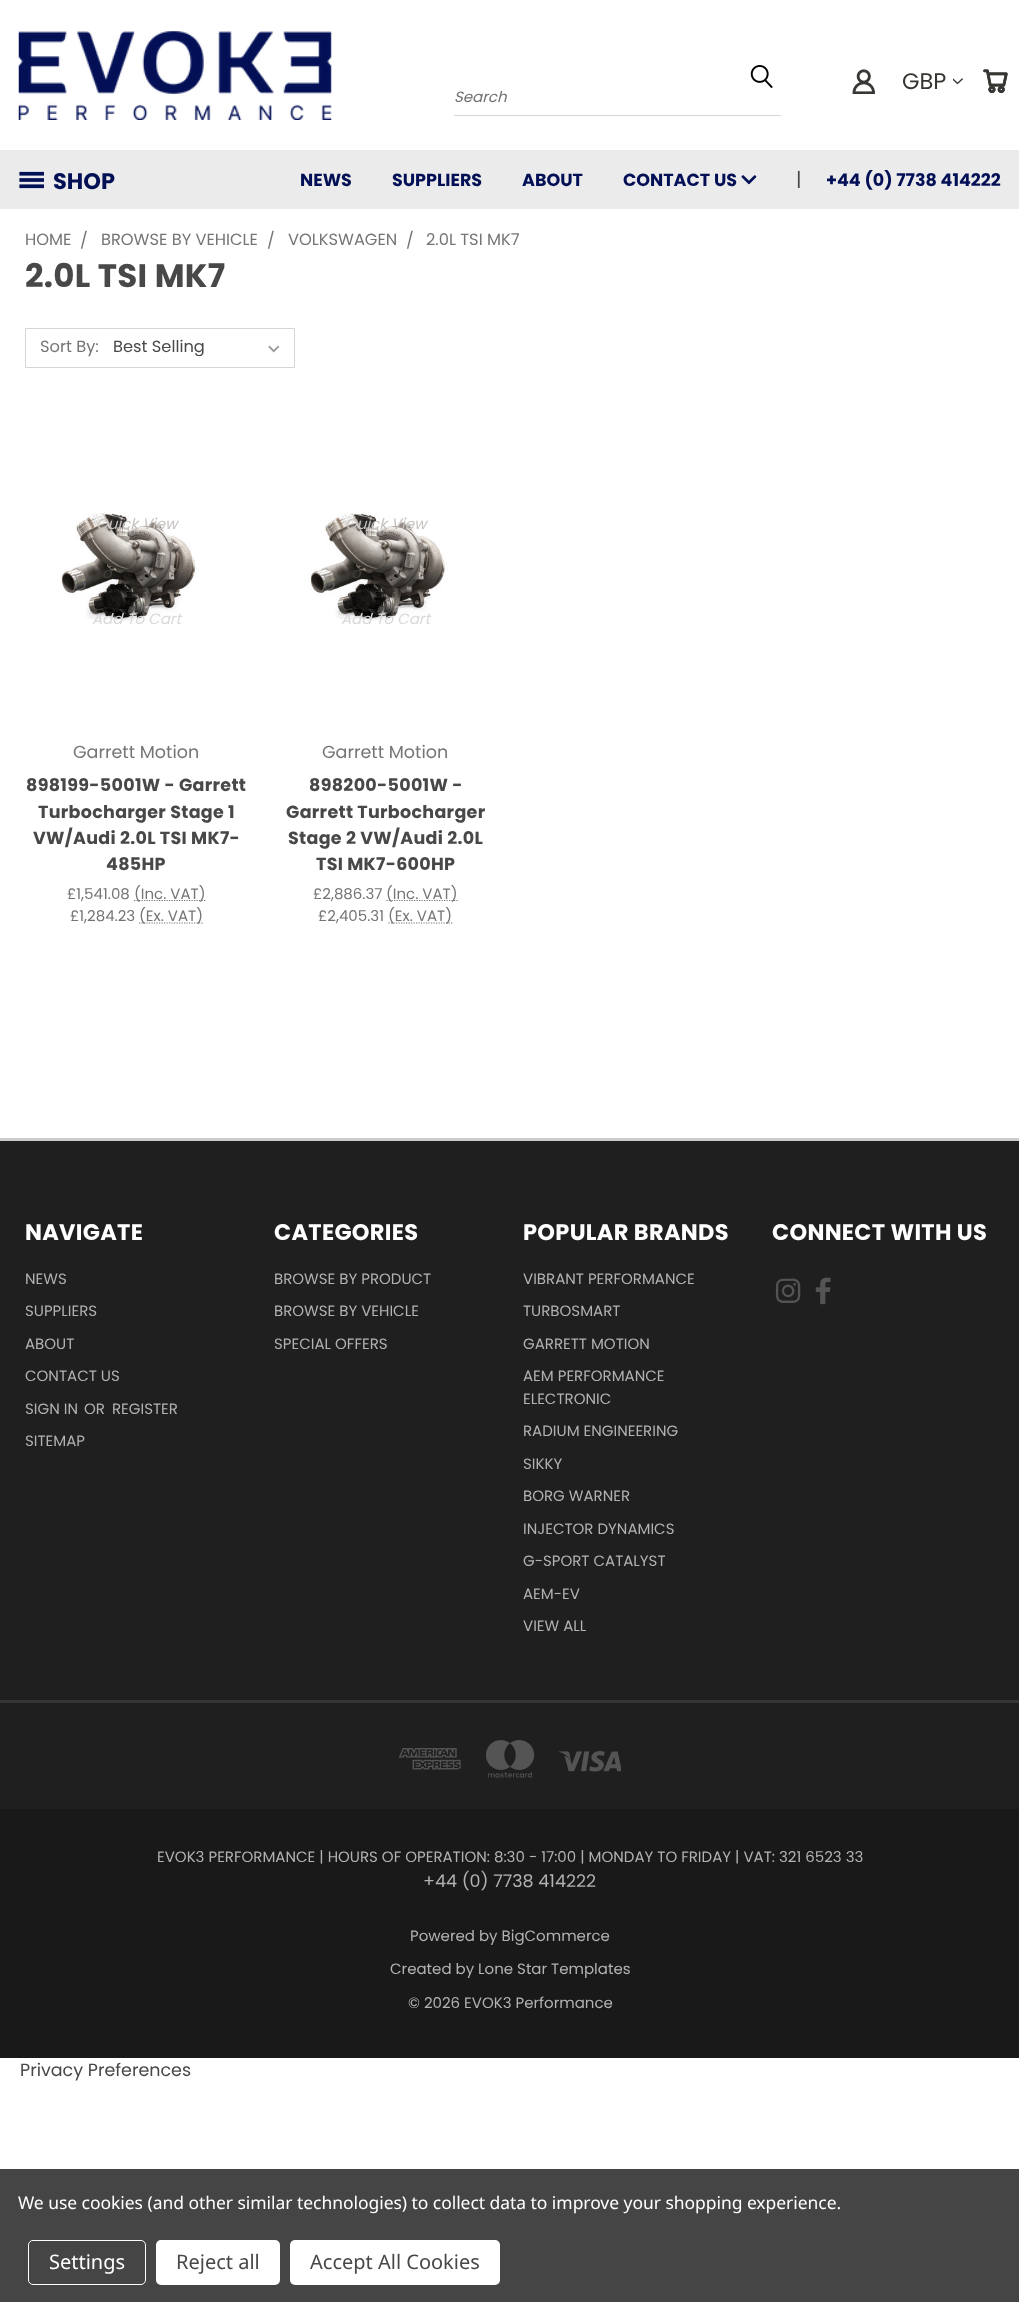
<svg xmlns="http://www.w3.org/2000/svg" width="1019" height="2302">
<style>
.a{font:22.5px Poppins;fill:#363633}
.b{font:italic 15px Poppins;fill:#70706e}
.c{font:bold 22.5px Poppins;fill:#041056}
.d{font:bold 17.5px Poppins;fill:#041056}
.e{font:19px Poppins;fill:#484848}
.f{font:16.25px Poppins;fill:#757575}
.g{font:bold 32.5px Poppins;letter-spacing:0.3px;fill:#484848}
.h{font:16.25px Poppins;fill:#484848}
.i{font:italic 15px Poppins;fill:#c6c3c1}
.j{font:italic 15px Poppins;fill:#413e39}
.k{font:italic 15px Poppins;fill:#d9d9d9}
.l{font:17.5px Poppins;fill:#757575}
.m{font:bold 17.5px Poppins;letter-spacing:0.3px;fill:#484848}
.n{font:15px Poppins;fill:#757575}
.o{font:bold 22.5px Poppins;letter-spacing:0.3px;fill:#fff}
.p{font:15px Poppins;fill:#b2b2b2}
.q{font:17.5px Poppins;fill:#b2b2b2}
.r{font:17.5px Poppins;fill:#484848}
.s{font:17.5px Noto Sans;letter-spacing:-0.05px;fill:#fff}
.t{font:20px Noto Sans;fill:#fff}
.u{font:20px Noto Sans;fill:#484848}
</style>
<defs>
<clipPath id="clip1"><path d="M114 339h145v17H114z"/></clipPath>
</defs>
<rect width="100%" height="100%" fill="#fff"/>
<image href="1.png" x="18" y="31" width="314" height="89"/>
<image href="2.png" x="852" y="69" width="23" height="25"/>
<image href="3.png" x="953" y="78" width="10" height="7"/>
<image href="4.png" x="983" y="69" width="25" height="25"/>
<image href="5.png" x="750" y="65" width="23" height="23"/>
<path fill="#d7d7d7" d="M454 115h327v1H454z"/>
<path fill="#ebebeb" d="M0 150h1019v59H0z"/>
<image href="6.png" x="19" y="171" width="25" height="18"/>
<image href="7.png" x="741" y="175" width="16" height="10"/>
<path fill="none" stroke="#d7d7d7" d="M25.5 328.5h269v39H25.5z"/>
<image href="8.png" x="268" y="345" width="12" height="8"/>
<image href="9.png" x="60" y="513" width="137" height="109"/>
<path fill="none" stroke="#757575" stroke-width="1.2" stroke-dasharray="1.25 1.25" d="M134 900.5h71.5"/>
<path fill="none" stroke="#757575" stroke-width="1.2" stroke-dasharray="1.25 1.25" d="M139 923h64"/>
<image href="10.png" x="308" y="513" width="138" height="108"/>
<path fill="none" stroke="#757575" stroke-width="1.2" stroke-dasharray="1.25 1.25" d="M386.5 900.5h71.5"/>
<path fill="none" stroke="#757575" stroke-width="1.2" stroke-dasharray="1.25 1.25" d="M388.5 923h64"/>
<path fill="#1f1f1f" d="M0 1141h1019v668H0z"/>
<path fill="#cdcccc" d="M0 1138h1019v3H0z"/>
<image href="11.png" x="775" y="1278" width="26" height="25"/>
<image href="12.png" x="815" y="1277" width="16" height="28"/>
<path fill="#363636" d="M0 1700h1019v3H0z"/>
<image href="13.png" x="399" y="1748" width="62" height="22"/>
<image href="14.png" x="486" y="1740" width="49" height="38"/>
<image href="15.png" x="559" y="1751" width="62" height="21"/>
<path fill="#191919" d="M0 1809h1019v249H0z"/>
<path fill="#454545" d="M0 2169h1019v133H0z"/>
<rect fill="none" stroke="#fff" x="28.5" y="2240.5" width="117" height="44" rx="4.5"/>
<rect fill="#fff" x="156" y="2240" width="124" height="45" rx="5"/>
<rect fill="#fff" x="290" y="2240" width="210" height="45" rx="5"/>
<text class="a" x="902" y="89">GBP</text>
<text class="b" x="454" y="102">Search</text>
<text class="c" x="53" y="189">SHOP</text>
<text class="d" x="300" y="186">NEWS</text>
<text class="d" x="392" y="186">SUPPLIERS</text>
<text class="d" x="522" y="186">ABOUT</text>
<text class="d" x="623" y="186">CONTACT US</text>
<text class="e" x="796" y="186">|</text>
<text class="d" x="826" y="186">+44 (0) 7738 414222</text>
<text class="f" x="25" y="245">HOME</text>
<text class="f" x="80" y="246">/</text>
<text class="f" x="101" y="245">BROWSE BY VEHICLE</text>
<text class="f" x="267" y="246">/</text>
<text class="f" x="288" y="245">VOLKSWAGEN</text>
<text class="f" x="406" y="246">/</text>
<text class="f" x="426" y="245">2.0L TSI MK7</text>
<text class="g" x="25" y="287">2.0L TSI MK7</text>
<text class="f" x="40" y="352">Sort By:</text>
<g clip-path="url(#clip1)">
<text class="h" x="113" y="352">Best Selling</text>
</g>
<text class="i" x="96" y="529">Quick View</text>
<text class="j" x="102" y="578">o</text>
<text class="j" x="147" y="578">r</text>
<text class="k" x="92" y="624">Add To Cart</text>
<text class="l" x="73" y="758">Garrett Motion</text>
<text class="m" x="26" y="791">898199-5001W - Garrett</text>
<text class="m" x="38" y="818">Turbocharger Stage 1</text>
<text class="m" x="33" y="844">VW/Audi 2.0L TSI MK7-</text>
<text class="m" x="106" y="870">485HP</text>
<text class="n" x="67" y="899">£1,541.08</text>
<text class="n" x="134" y="899">(Inc. VAT)</text>
<text class="n" x="70" y="921">£1,284.23</text>
<text class="n" x="139" y="921">(Ex. VAT)</text>
<text class="i" x="345" y="529">Quick View</text>
<text class="j" x="351" y="578">o</text>
<text class="j" x="396" y="578">r</text>
<text class="k" x="341" y="624">Add To Cart</text>
<text class="l" x="322" y="758">Garrett Motion</text>
<text class="m" x="309" y="791">898200-5001W -</text>
<text class="m" x="286" y="818">Garrett Turbocharger</text>
<text class="m" x="288" y="844">Stage 2 VW/Audi 2.0L</text>
<text class="m" x="316" y="870">TSI MK7-600HP</text>
<text class="n" x="313" y="899">£2,886.37</text>
<text class="n" x="386" y="899">(Inc. VAT)</text>
<text class="n" x="318" y="921">£2,405.31</text>
<text class="n" x="388" y="921">(Ex. VAT)</text>
<text class="o" x="25" y="1240">NAVIGATE</text>
<text class="p" x="25" y="1284">NEWS</text>
<text class="p" x="25" y="1316">SUPPLIERS</text>
<text class="p" x="25" y="1349">ABOUT</text>
<text class="p" x="25" y="1381">CONTACT US</text>
<text class="p" x="25" y="1414">SIGN IN</text>
<text class="p" x="84" y="1414">OR</text>
<text class="p" x="112" y="1414">REGISTER</text>
<text class="p" x="25" y="1446">SITEMAP</text>
<text class="o" x="274" y="1240">CATEGORIES</text>
<text class="p" x="274" y="1284">BROWSE BY PRODUCT</text>
<text class="p" x="274" y="1316">BROWSE BY VEHICLE</text>
<text class="p" x="274" y="1349">SPECIAL OFFERS</text>
<text class="o" x="523" y="1240">POPULAR BRANDS</text>
<text class="p" x="523" y="1284">VIBRANT PERFORMANCE</text>
<text class="p" x="523" y="1316">TURBOSMART</text>
<text class="p" x="523" y="1349">GARRETT MOTION</text>
<text class="p" x="523" y="1381">AEM PERFORMANCE</text>
<text class="p" x="523" y="1404">ELECTRONIC</text>
<text class="p" x="523" y="1436">RADIUM ENGINEERING</text>
<text class="p" x="523" y="1469">SIKKY</text>
<text class="p" x="523" y="1501">BORG WARNER</text>
<text class="p" x="523" y="1534">INJECTOR DYNAMICS</text>
<text class="p" x="523" y="1566">G-SPORT CATALYST</text>
<text class="p" x="523" y="1599">AEM-EV</text>
<text class="p" x="523" y="1631">VIEW ALL</text>
<text class="o" x="772" y="1240">CONNECT WITH US</text>
<text class="p" x="157" y="1862">EVOK3 PERFORMANCE | HOURS OF OPERATION: 8:30 - 17:00 | MONDAY TO FRIDAY | VAT: 321 6523 33</text>
<text class="q" x="423" y="1887">+44 (0) 7738 414222</text>
<text class="p" x="410" y="1941">Powered by BigCommerce</text>
<text class="p" x="390" y="1974">Created by Lone Star Templates</text>
<text class="p" x="408" y="2008">© 2026 EVOK3 Performance</text>
<text class="r" x="20" y="2076">Privacy Preferences</text>
<text class="s" x="18" y="2209">We use cookies (and other similar technologies) to collect data to improve your shopping experience.</text>
<text class="t" x="49" y="2269">Settings</text>
<text class="u" x="176" y="2269">Reject all</text>
<text class="u" x="310" y="2269">Accept All Cookies</text>
</svg>
